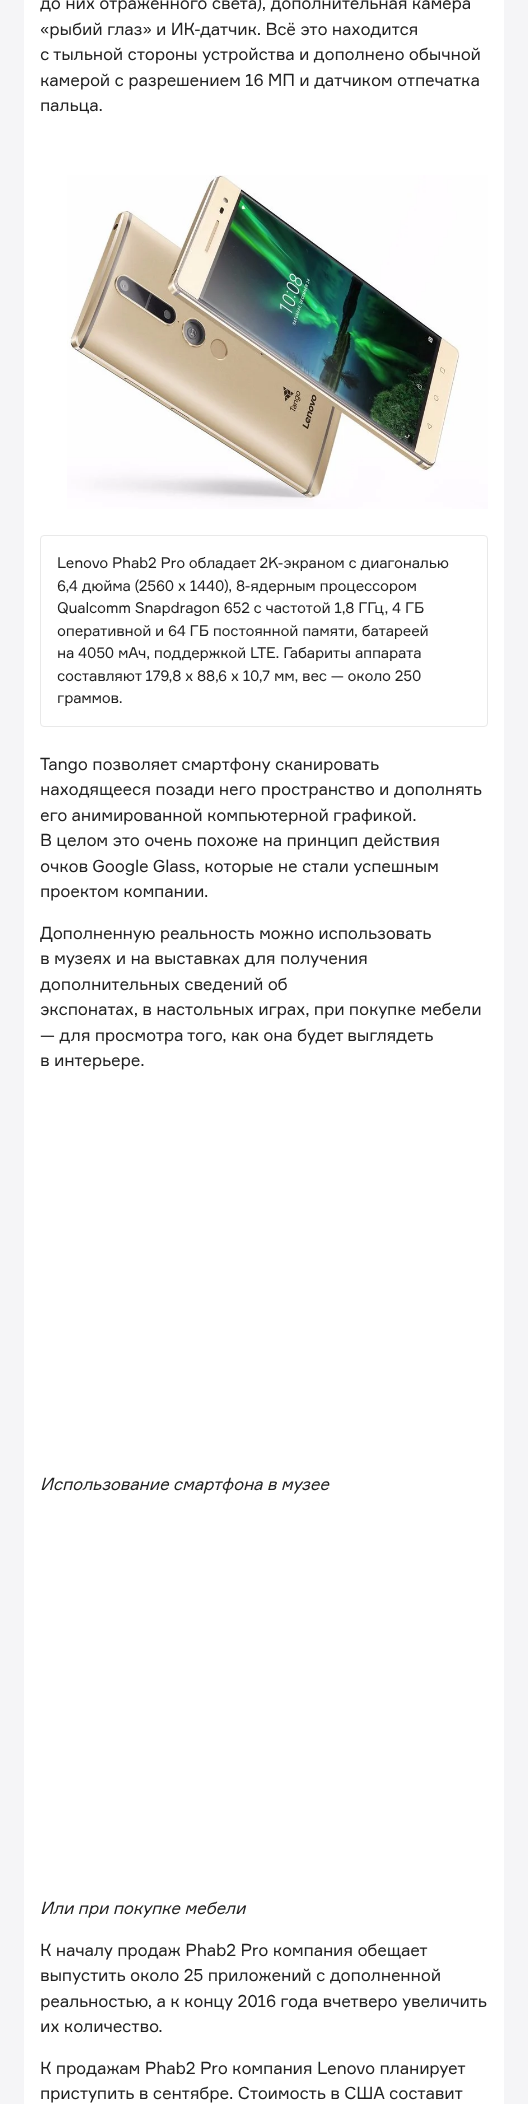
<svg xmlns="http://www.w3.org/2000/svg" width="528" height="2104">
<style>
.a{font:17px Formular;letter-spacing:-0.23px;fill:#222}
.b{font:15px Formular;letter-spacing:-0.23px;fill:#222}
.c{font:italic 17px Formular;letter-spacing:-0.23px;fill:#222}
</style>
<rect width="100%" height="100%" fill="#f5f5f7"/>
<path fill="#fff" d="M24 0h480v2104H24z"/>
<image href="1.png" x="67" y="175" width="421" height="334"/>
<rect fill="none" stroke="#e9e9e9" x="40.5" y="535.5" width="447" height="191" rx="3.5"/>
<text class="a" x="40" y="9">до них отраженного света), дополнительная камера</text>
<text class="a" x="40" y="35">«рыбий глаз» и ИК-датчик. Всё это находится</text>
<text class="a" x="40" y="60">с тыльной стороны устройства и дополнено обычной</text>
<text class="a" x="40" y="86">камерой с разрешением 16 МП и датчиком отпечатка</text>
<text class="a" x="40" y="111">пальца.</text>
<text class="b" x="57" y="568">Lenovo Phab2 Pro обладает 2K-экраном с диагональю</text>
<text class="b" x="57" y="591">6,4 дюйма (2560 x 1440), 8-ядерным процессором</text>
<text class="b" x="57" y="613">Qualcomm Snapdragon 652 с частотой 1,8 ГГц, 4 ГБ</text>
<text class="b" x="57" y="636">оперативной и 64 ГБ постоянной памяти, батареей</text>
<text class="b" x="57" y="658">на 4050 мАч, поддержкой LTE. Габариты аппарата</text>
<text class="b" x="57" y="681">составляют 179,8 x 88,6 x 10,7 мм, вес — около 250</text>
<text class="b" x="57" y="703">граммов.</text>
<text class="a" x="40" y="770">Tango позволяет смартфону сканировать</text>
<text class="a" x="40" y="795">находящееся позади него пространство и дополнять</text>
<text class="a" x="40" y="821">его анимированной компьютерной графикой.</text>
<text class="a" x="40" y="846">В целом это очень похоже на принцип действия</text>
<text class="a" x="40" y="872">очков Google Glass, которые не стали успешным</text>
<text class="a" x="40" y="897">проектом компании.</text>
<text class="a" x="40" y="939">Дополненную реальность можно использовать</text>
<text class="a" x="40" y="964">в музеях и на выставках для получения</text>
<text class="a" x="40" y="990">дополнительных сведений об</text>
<text class="a" x="40" y="1015">экспонатах, в настольных играх, при покупке мебели</text>
<text class="a" x="40" y="1041">— для просмотра того, как она будет выглядеть</text>
<text class="a" x="40" y="1066">в интерьере.</text>
<text class="c" x="40" y="1490">Использование смартфона в музее</text>
<text class="c" x="40" y="1914">Или при покупке мебели</text>
<text class="a" x="40" y="1956">К началу продаж Phab2 Pro компания обещает</text>
<text class="a" x="40" y="1981">выпустить около 25 приложений с дополненной</text>
<text class="a" x="40" y="2007">реальностью, а к концу 2016 года вчетверо увеличить</text>
<text class="a" x="40" y="2032">их количество.</text>
<text class="a" x="40" y="2074">К продажам Phab2 Pro компания Lenovo планирует</text>
<text class="a" x="40" y="2099">приступить в сентябре. Стоимость в США составит</text>
</svg>
